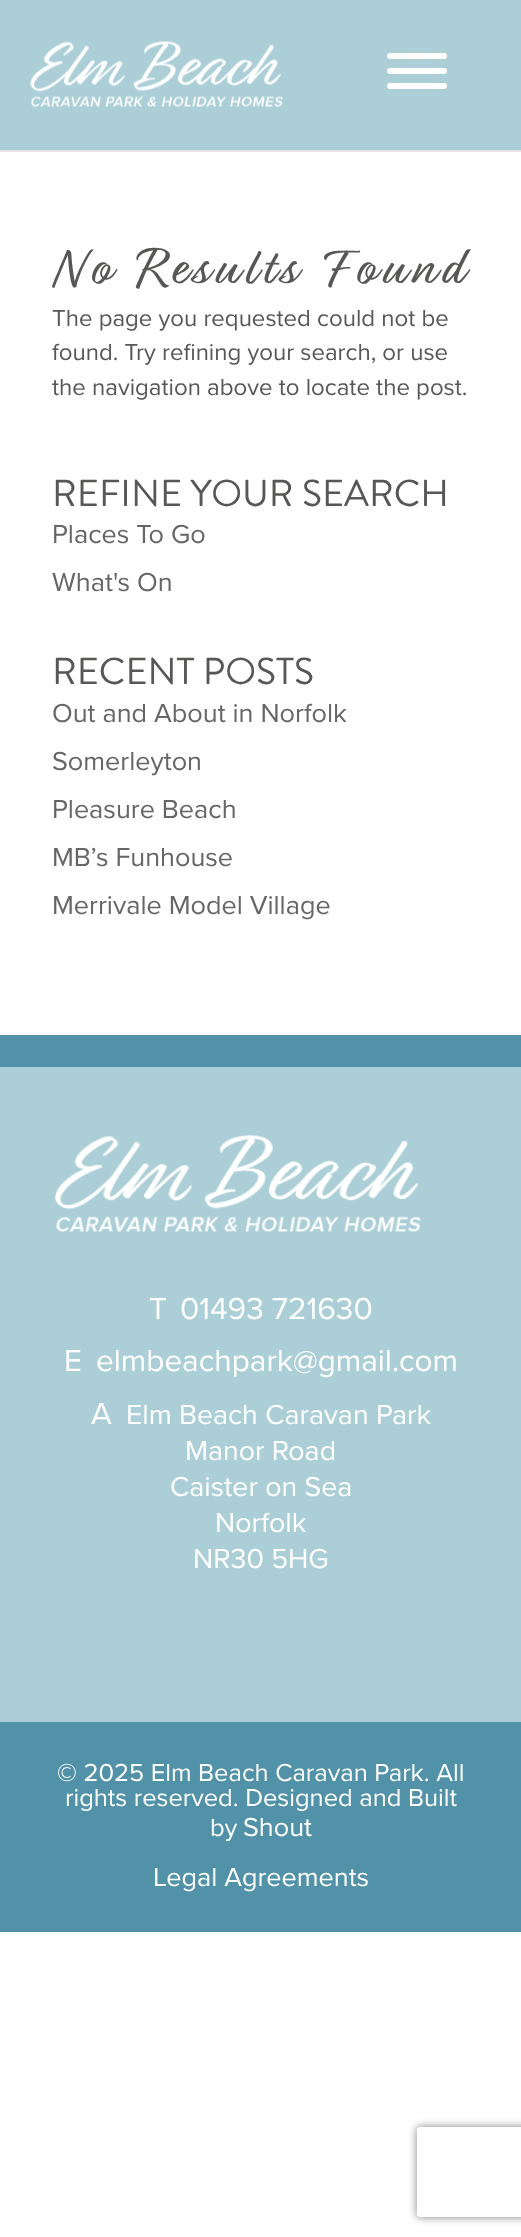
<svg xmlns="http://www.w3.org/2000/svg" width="521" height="2237">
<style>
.a{font:54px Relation;letter-spacing:6px;fill:#575756}
.b{font:24px Proxima Nova;fill:#575756}
.c{font:37.5px Brandon Grotesque;fill:#575756}
.d{font:27px Proxima Nova;fill:#666}
.e{font:31.5px Proxima Nova;fill:#fff}
.f{font:28.5px Proxima Nova;fill:#fff}
.g{font:25.5px Proxima Nova;fill:#fff}
.h{font:27px Proxima Nova;fill:#fff}
</style>
<defs>
<clipPath id="clip1"><path d="M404 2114h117v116h-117zm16 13h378c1.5 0 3 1.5 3 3v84c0 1.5-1.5 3-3 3h-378c-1.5 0-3-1.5-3-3v-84c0-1.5 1.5-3 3-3z" clip-rule="evenodd"/></clipPath>
</defs>
<rect width="100%" height="100%" fill="#fff"/>
<path fill="#e6e6e6" d="M0 150h521v2H0z"/>
<path fill="#accfd7" d="M0 0h521v150H0z"/>
<image href="1.png" x="30" y="41" width="253" height="66"/>
<rect fill="#fff" x="387" y="68" width="60" height="6" rx="3"/>
<rect fill="#fff" x="387" y="53" width="60" height="6" rx="3"/>
<rect fill="#fff" x="387" y="83" width="60" height="6" rx="3"/>
<path fill="#5192a8" d="M0 1035h521v32H0z"/>
<path fill="#accfd7" d="M0 1067h521v655H0z"/>
<image href="2.png" x="54" y="1135" width="367" height="97"/>
<path fill="#5192a8" d="M0 1722h521v210H0z"/>
<g clip-path="url(#clip1)">
<rect fill="#808080" filter="blur(4px)" x="417" y="2127" width="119" height="90" rx="3"/>
</g>
<text class="a" x="52" y="282">No Results Found</text>
<text class="b" x="52" y="326">The page you requested could not be</text>
<text class="b" x="52" y="360">found. Try refining your search, or use</text>
<text class="b" x="52" y="395">the navigation above to locate the post.</text>
<text class="c" x="52" y="506">REFINE YOUR SEARCH</text>
<text class="d" x="52" y="543">Places To Go</text>
<text class="d" x="52" y="591">What's On</text>
<text class="c" x="52" y="684">RECENT POSTS</text>
<text class="d" x="52" y="722">Out and About in Norfolk</text>
<text class="d" x="52" y="770">Somerleyton</text>
<text class="d" x="52" y="818">Pleasure Beach</text>
<text class="d" x="52" y="866">MB’s Funhouse</text>
<text class="d" x="52" y="914">Merrivale Model Village</text>
<text class="e" x="149" y="1319">T</text>
<text class="e" x="180" y="1319">01493 721630</text>
<text class="e" x="64" y="1371">E</text>
<text class="e" x="96" y="1371">elmbeachpark@gmail.com</text>
<text class="e" x="91" y="1424">A</text>
<text class="f" x="126" y="1424">Elm Beach Caravan Park</text>
<text class="f" x="185" y="1460">Manor Road</text>
<text class="f" x="170" y="1496">Caister on Sea</text>
<text class="f" x="215" y="1532">Norfolk</text>
<text class="f" x="193" y="1568">NR30 5HG</text>
<text class="g" x="57" y="1781">© 2025 Elm Beach Caravan Park. All</text>
<text class="g" x="65" y="1806">rights reserved. Designed and Built</text>
<text class="g" x="210" y="1836">by</text>
<text class="h" x="243" y="1836">Shout</text>
<text class="h" x="153" y="1886">Legal Agreements</text>
</svg>
